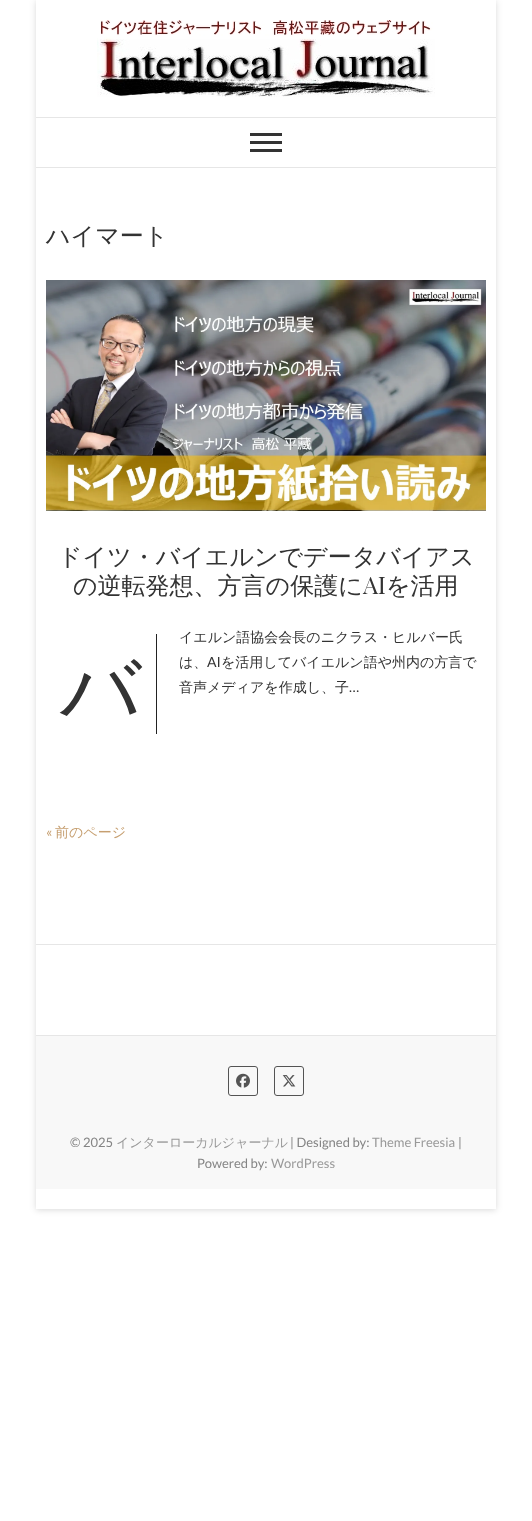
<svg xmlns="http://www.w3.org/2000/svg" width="532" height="1521">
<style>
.a{font:500 24px WenQuanYi Zen Hei;fill:#333}
.b{font:24px Playfair Display;fill:#333}
.c{font:500 14px WenQuanYi Zen Hei;fill:#333}
.d{font:80px Noto Sans;fill:#333}
.e{font:14px Lato;fill:#333}
.f{font:14px Lato;fill:#c69f70}
.g{font:500 14px WenQuanYi Zen Hei;fill:#c69f70}
.h{font:13px Lato;fill:#848484}
.i{font:500 13px WenQuanYi Zen Hei;fill:#999}
.j{font:13px Lato;fill:#999}
</style>
<defs>
<clipPath id="clip1"><path d="M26 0h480v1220h-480zm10 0h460v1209h-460z" clip-rule="evenodd"/></clipPath>
</defs>
<rect width="100%" height="100%" fill="#fff"/>
<g clip-path="url(#clip1)">
<path fill="#00000026" filter="blur(3px)" d="M36 1h460v1209H36z"/>
</g>
<path fill="#e6e6e6" d="M36 117h460v1H36z"/>
<image href="1.png" x="97" y="20" width="338" height="77"/>
<path fill="#e6e6e6" d="M36 167h460v1H36z"/>
<path fill="#333" d="M250 133h32v3H250z"/>
<path fill="#333" d="M250 141h32v3H250z"/>
<path fill="#333" d="M250 149h32v3H250z"/>
<image href="2.png" x="46" y="280" width="440" height="231"/>
<path fill="#222" d="M156 634h1v100H156z"/>
<path fill="#e6e6e6" d="M36 944h460v1H36z"/>
<path fill="#e6e6e6" d="M36 1035h460v1H36z"/>
<path fill="#f8f8f8" d="M36 1036h460v153H36z"/>
<rect fill="none" stroke="#545454" x="228.5" y="1066.5" width="29" height="29" rx="2.5"/>
<image href="3.png" x="236" y="1073" width="14" height="15"/>
<rect fill="none" stroke="#545454" x="274.5" y="1066.5" width="29" height="29" rx="2.5"/>
<image href="4.png" x="282" y="1075" width="14" height="12"/>
<text class="a" x="46" y="244">ハイマート</text>
<text class="a" x="58" y="565">ドイツ・バイエルンでデータバイアス</text>
<text class="a" x="73" y="594">の逆転発想、方言の保護に</text>
<text class="b" x="363" y="594">AI</text>
<text class="a" x="386" y="594">を活用</text>
<text class="c" x="179" y="642">イエルン語協会会長のニクラス・ヒルバー氏</text>
<text class="d" x="60" y="717">バ</text>
<text class="c" x="179" y="667">は、</text>
<text class="e" x="207" y="667">AI</text>
<text class="c" x="221" y="667">を活用してバイエルン語や州内の方言で</text>
<text class="c" x="179" y="692">音声メディアを作成し、子</text>
<text class="e" x="349" y="692">…</text>
<text class="f" x="46" y="837">«</text>
<text class="g" x="55" y="837">前のページ</text>
<text class="h" x="70" y="1147">© 2025</text>
<text class="i" x="116" y="1147">インターローカルジャーナル</text>
<text class="h" x="290" y="1147">| Designed by:</text>
<text class="j" x="372" y="1147">Theme Freesia</text>
<text class="h" x="458" y="1147">|</text>
<text class="h" x="197" y="1168">Powered by:</text>
<text class="j" x="271" y="1168">WordPress</text>
</svg>
